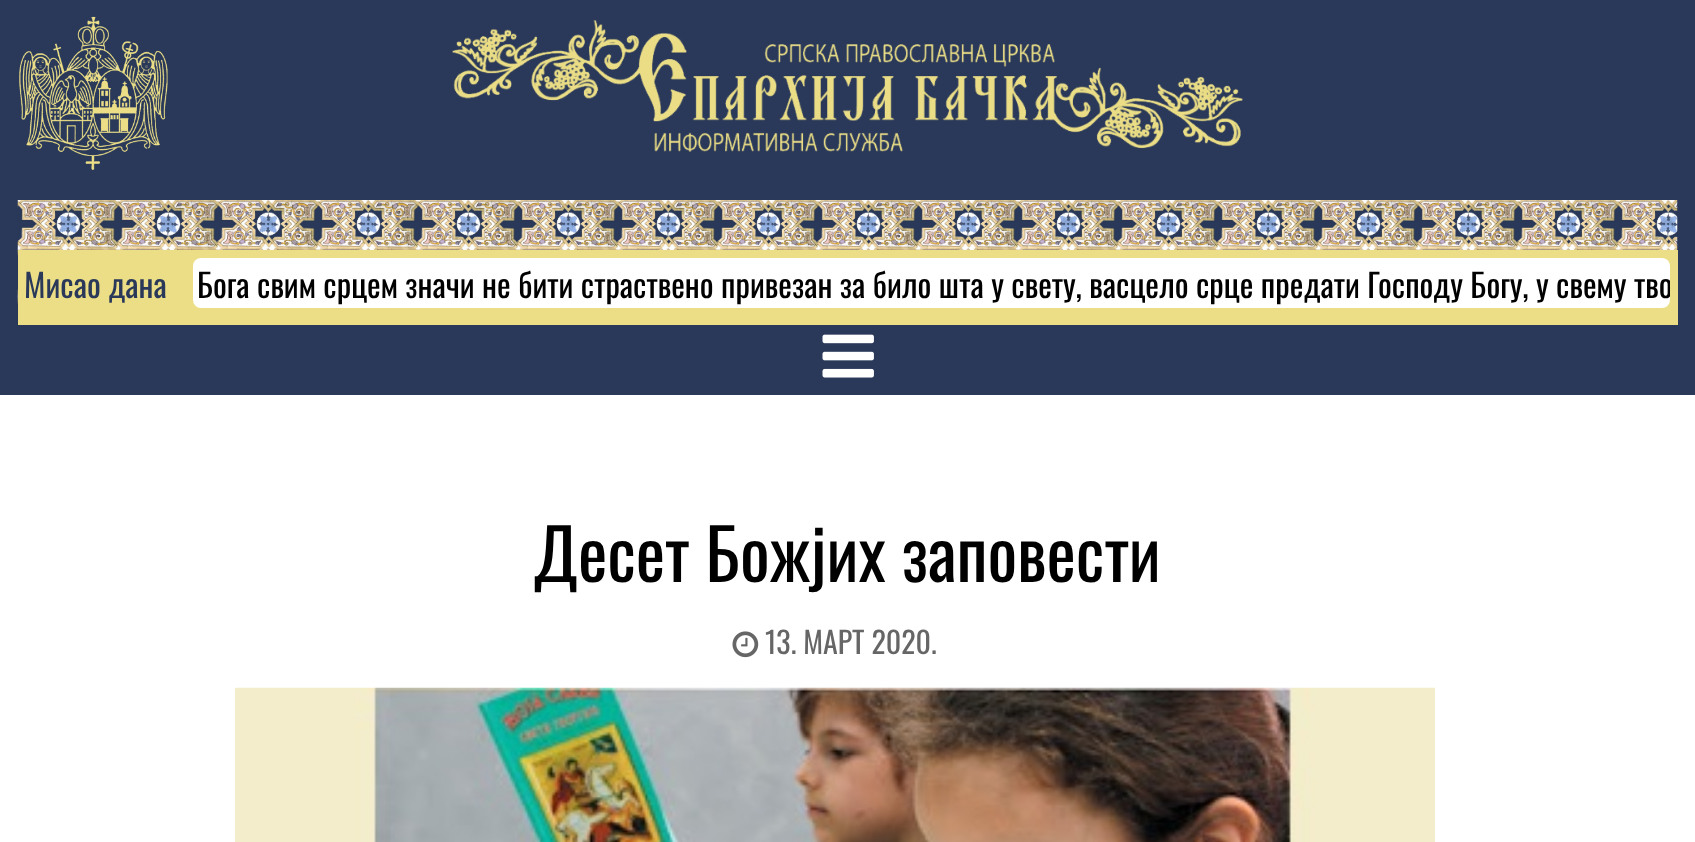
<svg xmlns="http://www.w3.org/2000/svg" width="1695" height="842">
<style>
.a{font:32.5px Oswald;fill:#2a3959}
.b{font:32.5px Oswald;fill:#000}
.c{font:70px Oswald;fill:#000}
.d{font:30px Oswald;fill:#666}
</style>
<defs>
<clipPath id="clip1"><rect x="193" y="258" width="1477" height="50" rx="8"/></clipPath>
</defs>
<rect width="100%" height="100%" fill="#fff"/>
<path fill="#2a3959" d="M0 0h1695v395H0z"/>
<image href="1.png" x="19" y="16" width="149" height="154"/>
<image href="2.png" x="452" y="20" width="791" height="132"/>
<image href="3.png" x="17" y="200" width="1661" height="125"/>
<path fill="#ebde86" d="M18 250h1660v75H18z"/>
<rect fill="#fff" x="193" y="258" width="1477" height="50" rx="8"/>
<image href="4.png" x="822" y="334" width="52" height="44"/>
<image href="5.png" x="732" y="631" width="27" height="27"/>
<image href="6.png" x="235" y="687" width="1200" height="155"/>
<text class="a" x="24" y="298">Mисао дана</text>
<g clip-path="url(#clip1)">
<text class="b" x="197" y="298">Бога свим срцем значи не бити страствено привезан за било шта у свету, васцело срце предати Господу Богу, у свему тво</text>
</g>
<text class="c" x="534" y="582">Десет Божјих заповести</text>
<text class="d" x="765" y="654">13. МАРТ 2020.</text>
</svg>
